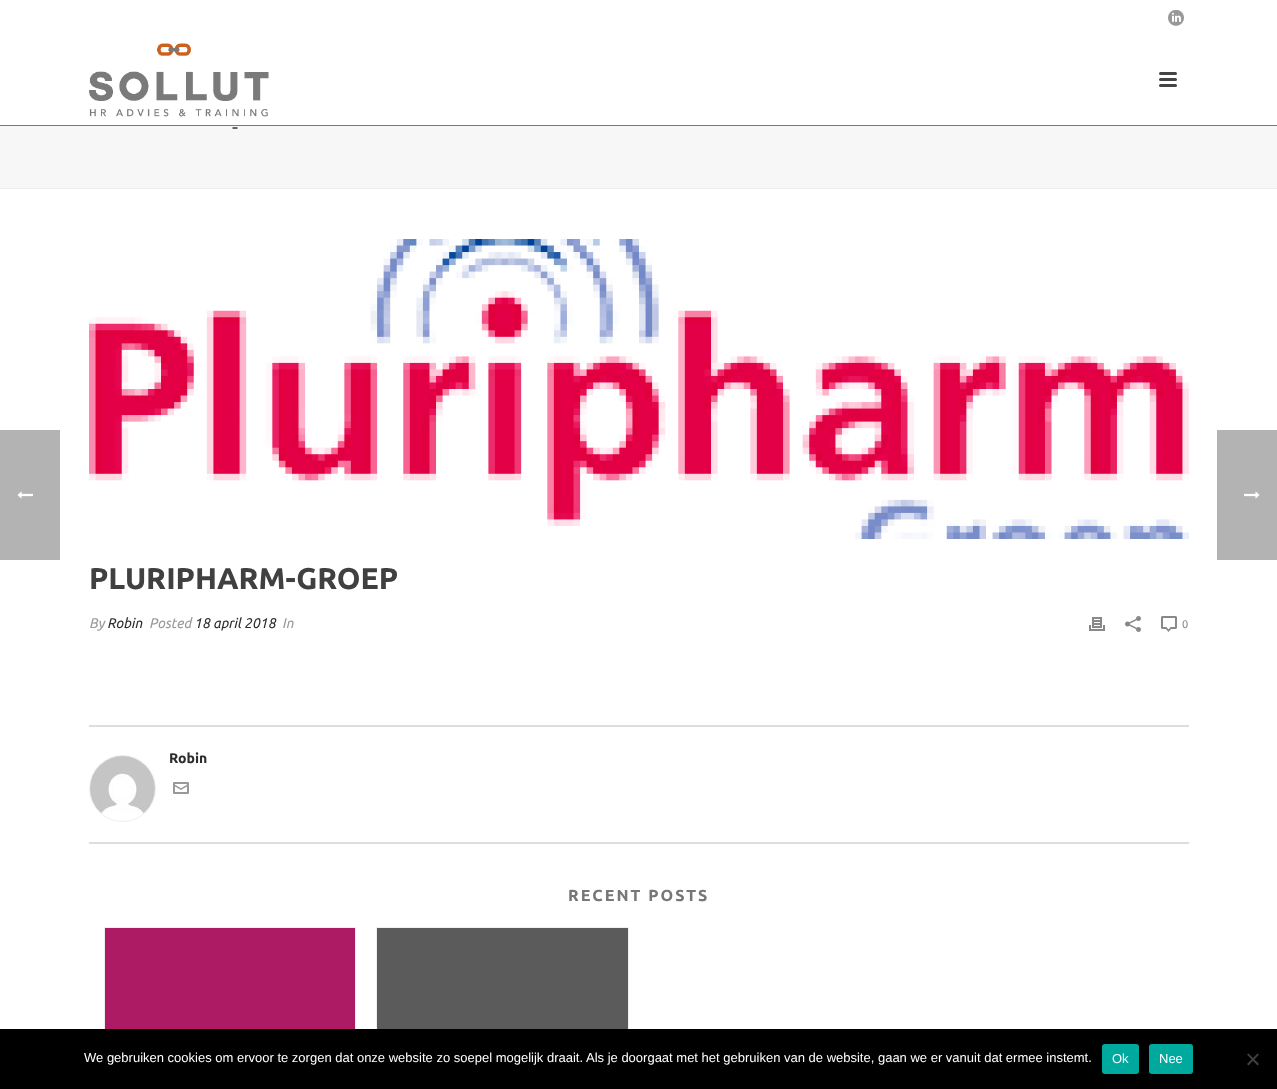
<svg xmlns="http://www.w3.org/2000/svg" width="1277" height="1089">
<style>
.a{font:20px Ubuntu;letter-spacing:2px;fill:#4d4d4d}
.b{font:bold 30px Ubuntu;fill:#404040}
.c{font:italic 14px Ubuntu;fill:#999}
.d{font:italic 14px Ubuntu;fill:#2e2e2e}
.e{font:11px Ubuntu;fill:#898989}
.f{font:bold 14px Ubuntu;fill:#2e2e2e}
.g{font:bold 16px Ubuntu;letter-spacing:2px;fill:#777}
.h{font:13px Liberation Sans;fill:#fff}
</style>
<rect width="100%" height="100%" fill="#fff"/>
<path fill="#b3b3b3" d="M0 430h60v130H0z"/>
<image href="1.png" x="17" y="491" width="16" height="8"/>
<path fill="#f7f7f7" d="M0 126h1277v62H0z"/>
<path fill="#ededed" d="M0 188h1277v1H0z"/>
<image href="2.png" x="1168" y="10" width="16" height="16"/>
<path fill="#cd601c" d="M0 125h1277v1H0z"/>
<image href="3.png" x="89" y="43" width="180" height="74"/>
<rect fill="#444" x="1159" y="72" width="18" height="3" rx="1.5"/>
<rect fill="#444" x="1159" y="78" width="18" height="3" rx="1.5"/>
<rect fill="#444" x="1159" y="84" width="18" height="3" rx="1.5"/>
<image href="4.png" x="89" y="239" width="1100" height="300"/>
<image href="5.png" x="1089" y="617" width="16" height="14"/>
<image href="6.png" x="1125" y="616" width="16" height="16"/>
<image href="7.png" x="1161" y="616" width="16" height="16"/>
<path fill="#ddd" d="M89 725h1100v2H89z"/>
<path fill="#ddd" d="M89 842h1100v2H89z"/>
<circle fill="none" stroke="#eee" cx="122.5" cy="788.5" r="33"/>
<image href="8.png" x="90" y="756" width="65" height="57"/>
<image href="9.png" x="173" y="782" width="16" height="12"/>
<path fill="none" stroke="#efefef" d="M104.5 927.5h251v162H104.5z"/>
<path fill="#ad1b64" d="M105 928h250v101H105z"/>
<path fill="none" stroke="#efefef" d="M376.5 927.5h252v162H376.5z"/>
<path fill="#5b5b5b" d="M377 928h251v101H377z"/>
<path fill="#b3b3b3" d="M1217 430h60v130H1217z"/>
<image href="10.png" x="1244" y="491" width="16" height="8"/>
<path fill="#000" d="M0 1029h1277v60H0z"/>
<rect fill="#00a99d" x="1102" y="1044" width="37" height="30" rx="3"/>
<rect fill="#00a99d" x="1149" y="1044" width="44" height="30" rx="3"/>
<path fill="#404040" d="M1257.5 1053.5l1.5 1l-10.5 11l-1.5-1.5z"/>
<path fill="#404040" d="M1247 1054.5l1.5-1l10.5 10.5l-1.5 1.5z"/>
<text class="a" x="232" y="134">-</text>
<text class="b" x="89" y="589">PLURIPHARM-GROEP</text>
<text class="c" x="89" y="628">By</text>
<text class="d" x="107" y="628">Robin</text>
<text class="c" x="149" y="628">Posted</text>
<text class="d" x="194" y="628">18 april 2018</text>
<text class="c" x="282" y="628">In</text>
<text class="e" x="1182" y="628">0</text>
<text class="f" x="169" y="763">Robin</text>
<text class="g" x="568" y="901">RECENT POSTS</text>
<text class="h" x="84" y="1062">We gebruiken cookies om ervoor te zorgen dat onze website zo soepel mogelijk draait. Als je doorgaat met het gebruiken van de website, gaan we er vanuit dat ermee instemt.</text>
<text class="h" x="1112" y="1063">Ok</text>
<text class="h" x="1159" y="1063">Nee</text>
</svg>
